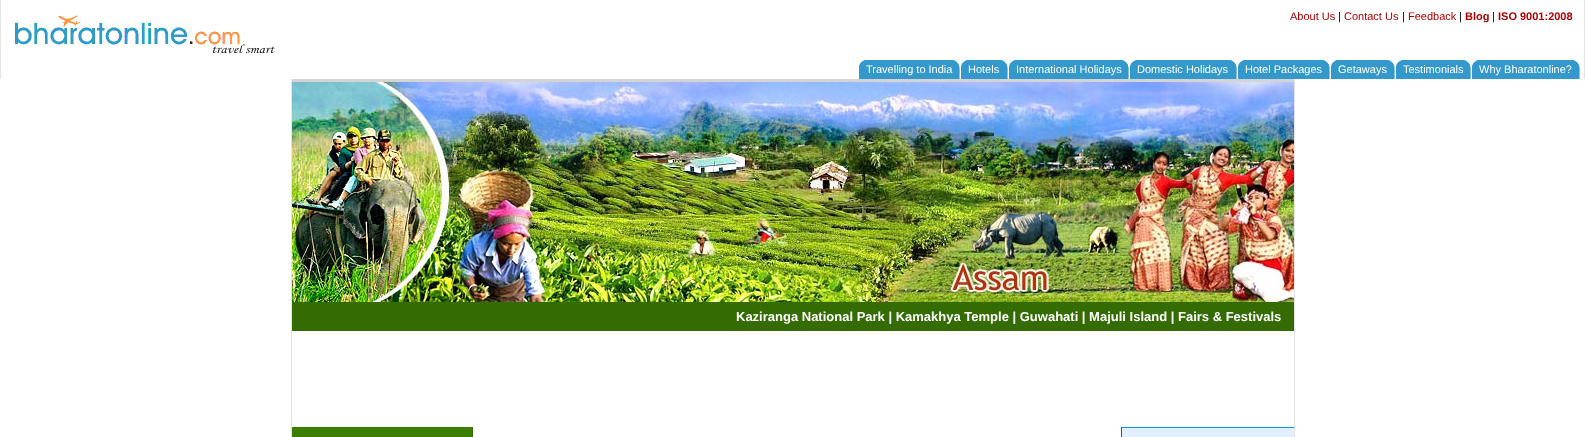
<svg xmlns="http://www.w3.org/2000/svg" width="1585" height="437">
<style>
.a{font:11px Liberation Sans;fill:#ad0000}
.b{font:11px Liberation Sans;fill:#000}
.c{font:bold 11px Liberation Sans;fill:#ad0000}
.d{font:11px Liberation Sans;fill:#fff}
.e{font:bold 13px Liberation Sans;fill:#fff}
</style>
<rect width="100%" height="100%" fill="#fff"/>
<path fill="#e5e5e5" d="M1584 0h1v79H1584z"/>
<path fill="#e5e5e5" d="M0 0h1v79H0z"/>
<image href="1.png" x="15" y="15" width="260" height="39"/>
<image href="2.png" x="859" y="60" width="6" height="19"/>
<path fill="#39c" d="M865 60h88v19H865z"/>
<image href="3.png" x="953" y="60" width="7" height="19"/>
<image href="2.png" x="961" y="60" width="6" height="19"/>
<path fill="#39c" d="M967 60h34v19H967z"/>
<image href="3.png" x="1001" y="60" width="7" height="19"/>
<image href="2.png" x="1009" y="60" width="6" height="19"/>
<path fill="#39c" d="M1015 60h107v19H1015z"/>
<image href="3.png" x="1122" y="60" width="7" height="19"/>
<image href="2.png" x="1130" y="60" width="6" height="19"/>
<path fill="#39c" d="M1136 60h94v19H1136z"/>
<image href="3.png" x="1230" y="60" width="7" height="19"/>
<image href="2.png" x="1238" y="60" width="6" height="19"/>
<path fill="#39c" d="M1244 60h79v19H1244z"/>
<image href="3.png" x="1323" y="60" width="7" height="19"/>
<image href="2.png" x="1331" y="60" width="6" height="19"/>
<path fill="#39c" d="M1337 60h51v19H1337z"/>
<image href="3.png" x="1388" y="60" width="7" height="19"/>
<image href="2.png" x="1396" y="60" width="6" height="19"/>
<path fill="#39c" d="M1402 60h62v19H1402z"/>
<image href="3.png" x="1464" y="60" width="7" height="19"/>
<image href="2.png" x="1472" y="60" width="6" height="19"/>
<path fill="#39c" d="M1478 60h95v19H1478z"/>
<image href="3.png" x="1573" y="60" width="7" height="19"/>
<path fill="#e5e5e5" d="M1294 79h1v358H1294z"/>
<path fill="#e5e5e5" d="M291 79h1v358H291z"/>
<path fill="#d5d3d3" d="M292 79h1002v3H292z"/>
<image href="4.png" x="1070" y="82" width="224" height="220"/>
<image href="5.png" x="292" y="82" width="158" height="220"/>
<image href="6.png" x="450" y="82" width="208" height="220"/>
<image href="7.png" x="658" y="82" width="205" height="220"/>
<image href="8.png" x="863" y="82" width="207" height="220"/>
<path fill="#346b03" d="M292 302h1002v29H292z"/>
<path fill="#346b03" d="M472 427h1v10H472z"/>
<path fill="#3c7e02" d="M292 427h180v10H292z"/>
<path fill="#346b03" d="M1121 427h1v10H1121z"/>
<path fill="#09f" d="M1122 427h172v1H1122z"/>
<path fill="#e2f0fe" d="M1122 428h172v9H1122z"/>
<text class="a" x="1290" y="20">About Us</text>
<text class="b" x="1338" y="20">|</text>
<text class="a" x="1344" y="20">Contact Us</text>
<text class="b" x="1402" y="20">|</text>
<text class="a" x="1408" y="20">Feedback</text>
<text class="b" x="1459" y="20">|</text>
<text class="c" x="1465" y="20">Blog</text>
<text class="b" x="1492" y="20">|</text>
<text class="c" x="1498" y="20">ISO 9001:2008</text>
<text class="d" x="866" y="73">Travelling to India</text>
<text class="d" x="968" y="73">Hotels</text>
<text class="d" x="1016" y="73">International Holidays</text>
<text class="d" x="1137" y="73">Domestic Holidays</text>
<text class="d" x="1245" y="73">Hotel Packages</text>
<text class="d" x="1338" y="73">Getaways</text>
<text class="d" x="1403" y="73">Testimonials</text>
<text class="d" x="1479" y="73">Why Bharatonline?</text>
<text class="e" x="736" y="321">Kaziranga National Park | Kamakhya Temple | Guwahati | Majuli Island | Fairs &amp; Festivals</text>
</svg>
